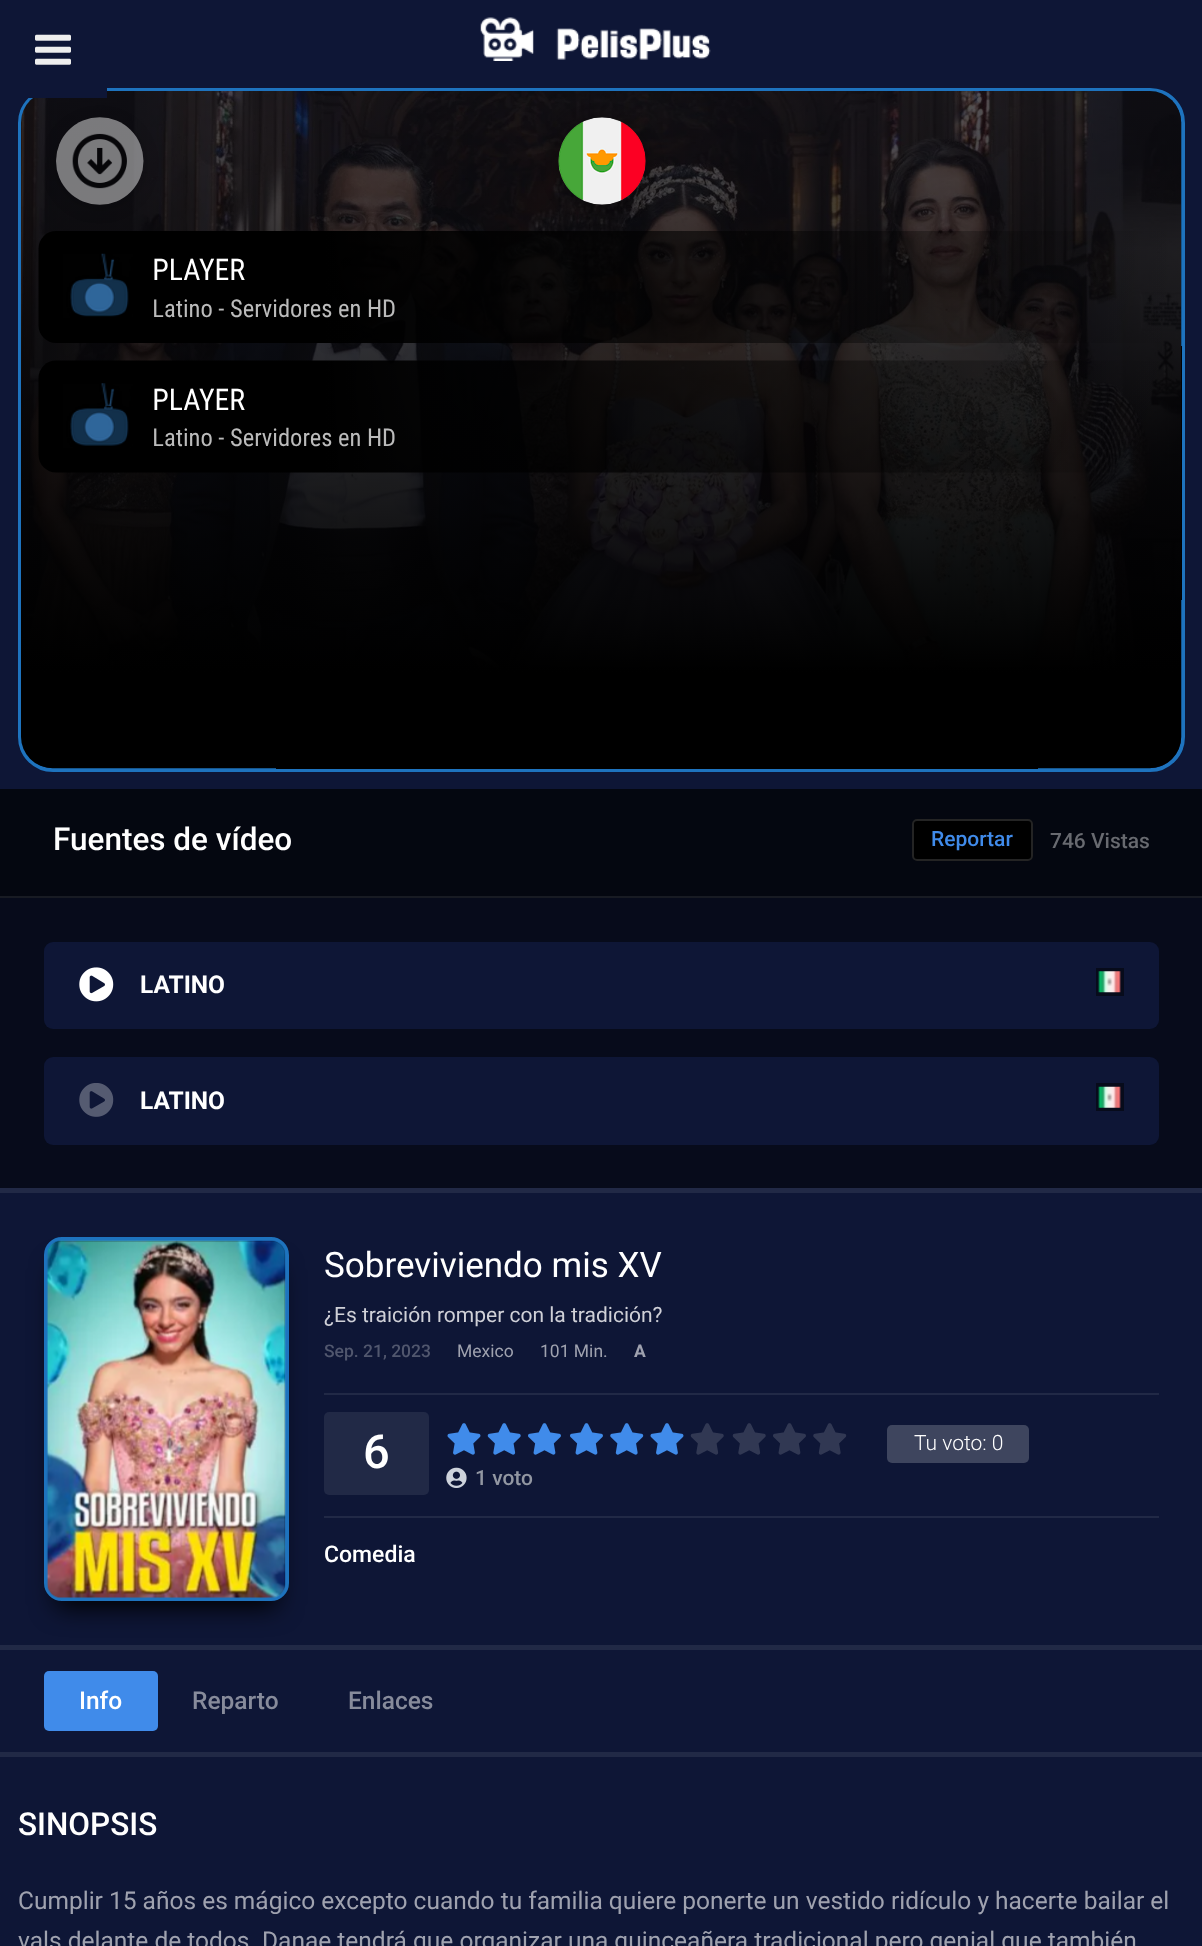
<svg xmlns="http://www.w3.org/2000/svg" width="1202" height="1946">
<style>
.a{font:500 31.5px Roboto;fill:#fff}
.b{font:500 21px Roboto;fill:#408bea}
.c{font:500 21px Roboto;fill:#686a70}
.d{font:bold 24.5px Roboto;fill:#fff}
.e{font:35px Roboto;fill:#fff}
.f{font:21px Roboto;fill:#cfd0d7}
.g{font:500 17.5px Roboto;fill:#51576e}
.h{font:17.5px Roboto;fill:#9fa2af}
.i{font:bold 17.5px Roboto;fill:#9fa2af}
.j{font:500 47px Roboto;fill:#fff}
.k{font:500 21px Roboto;fill:#9297a2}
.l{font:300 21px Roboto;fill:#fff}
.m{font:500 23px Roboto;fill:#fff}
.n{font:500 24.5px Roboto;fill:#fff}
.o{font:500 24.5px Roboto;fill:#878b9b}
.p{font:24.5px Roboto;fill:#9fa2af}
</style>
<rect width="100%" height="100%" fill="#0e1636"/>
<rect fill="none" stroke="#1e73be" stroke-width="4" x="20" y="90" width="1163" height="680" rx="33"/>
<image href="3.png" x="21" y="91" width="1161" height="678"/>
<path fill="#0e1636" d="M28 88h79v10H28z"/>
<image href="1.png" x="35" y="34" width="36" height="31"/>
<image href="2.png" x="480" y="17" width="231" height="44"/>
<path fill="#212946" d="M0 1188h1202v5H0z"/>
<path fill="#040710" d="M0 789h1202v107H0z"/>
<path fill="#181b23" d="M0 896h1202v2H0z"/>
<rect fill="#000" x="912" y="819" width="121" height="42" rx="5"/>
<rect fill="none" stroke="#ffffff24" stroke-width="2" x="913" y="820" width="119" height="40" rx="4"/>
<path fill="#070b1b" d="M0 898h1202v290H0z"/>
<rect fill="#0e1636" x="44" y="942" width="1115" height="87" rx="9"/>
<image href="4.png" x="79" y="967" width="35" height="35"/>
<path fill="none" stroke="#070b1b" stroke-width="4" d="M1098 970h24v24H1098z"/>
<image href="5.png" x="1098" y="971" width="23" height="22"/>
<rect fill="#0e1636" x="44" y="1057" width="1115" height="88" rx="9"/>
<image href="6.png" x="79" y="1083" width="35" height="34"/>
<path fill="none" stroke="#070b1b" stroke-width="4" d="M1098 1085h24v24H1098z"/>
<image href="7.png" x="1098" y="1086" width="23" height="22"/>
<path fill="#212946" d="M0 1645h1202v5H0z"/>
<rect fill="#000" filter="blur(13px)" x="56" y="1267" width="221" height="340" rx="5"/>
<rect fill="none" stroke="#1e73be" stroke-width="4" x="46" y="1239" width="241" height="360" rx="16"/>
<image href="8.png" x="46" y="1240" width="240" height="359"/>
<path fill="#212946" d="M324 1393h835v2H324z"/>
<path fill="#212946" d="M324 1516h835v2H324z"/>
<image href="9.png" x="447" y="1423" width="34" height="32"/>
<image href="10.png" x="487" y="1423" width="34" height="32"/>
<image href="11.png" x="528" y="1423" width="33" height="32"/>
<image href="11.png" x="570" y="1423" width="33" height="32"/>
<image href="12.png" x="610" y="1423" width="34" height="32"/>
<image href="9.png" x="650" y="1423" width="34" height="32"/>
<image href="13.png" x="690" y="1423" width="34" height="32"/>
<image href="13.png" x="732" y="1423" width="34" height="32"/>
<image href="14.png" x="773" y="1423" width="33" height="32"/>
<image href="15.png" x="813" y="1423" width="34" height="32"/>
<rect fill="#212946" x="324" y="1412" width="105" height="83" rx="5"/>
<image href="16.png" x="446" y="1467" width="21" height="21"/>
<rect fill="#3e455e" x="887" y="1425" width="142" height="38" rx="5"/>
<path fill="#212946" d="M0 1752h1202v5H0z"/>
<rect fill="#408bea" x="44" y="1671" width="114" height="60" rx="5"/>
<text class="a" x="53" y="850">Fuentes de vídeo</text>
<text class="b" x="931" y="846">Reportar</text>
<text class="c" x="1050" y="848">746 Vistas</text>
<text class="d" x="140" y="993">LATINO</text>
<text class="d" x="140" y="1109">LATINO</text>
<text class="e" x="324" y="1277">Sobreviviendo mis XV</text>
<text class="f" x="324" y="1322">¿Es traición romper con la tradición?</text>
<text class="g" x="324" y="1357">Sep. 21, 2023</text>
<text class="h" x="457" y="1357">Mexico</text>
<text class="h" x="540" y="1357">101 Min.</text>
<text class="i" x="634" y="1357">A</text>
<text class="j" x="363" y="1468">6</text>
<text class="k" x="475" y="1485">1 voto</text>
<text class="l" x="914" y="1450">Tu voto: 0</text>
<text class="m" x="324" y="1562">Comedia</text>
<text class="n" x="79" y="1709">Info</text>
<text class="o" x="192" y="1709">Reparto</text>
<text class="o" x="348" y="1709">Enlaces</text>
<text class="a" x="18" y="1835">SINOPSIS</text>
<text class="p" x="18" y="1909">Cumplir 15 años es mágico excepto cuando tu familia quiere ponerte un vestido ridículo y hacerte bailar el</text>
<text class="p" x="18" y="1949">vals delante de todos. Danae tendrá que organizar una quinceañera tradicional pero genial que también</text>
</svg>
